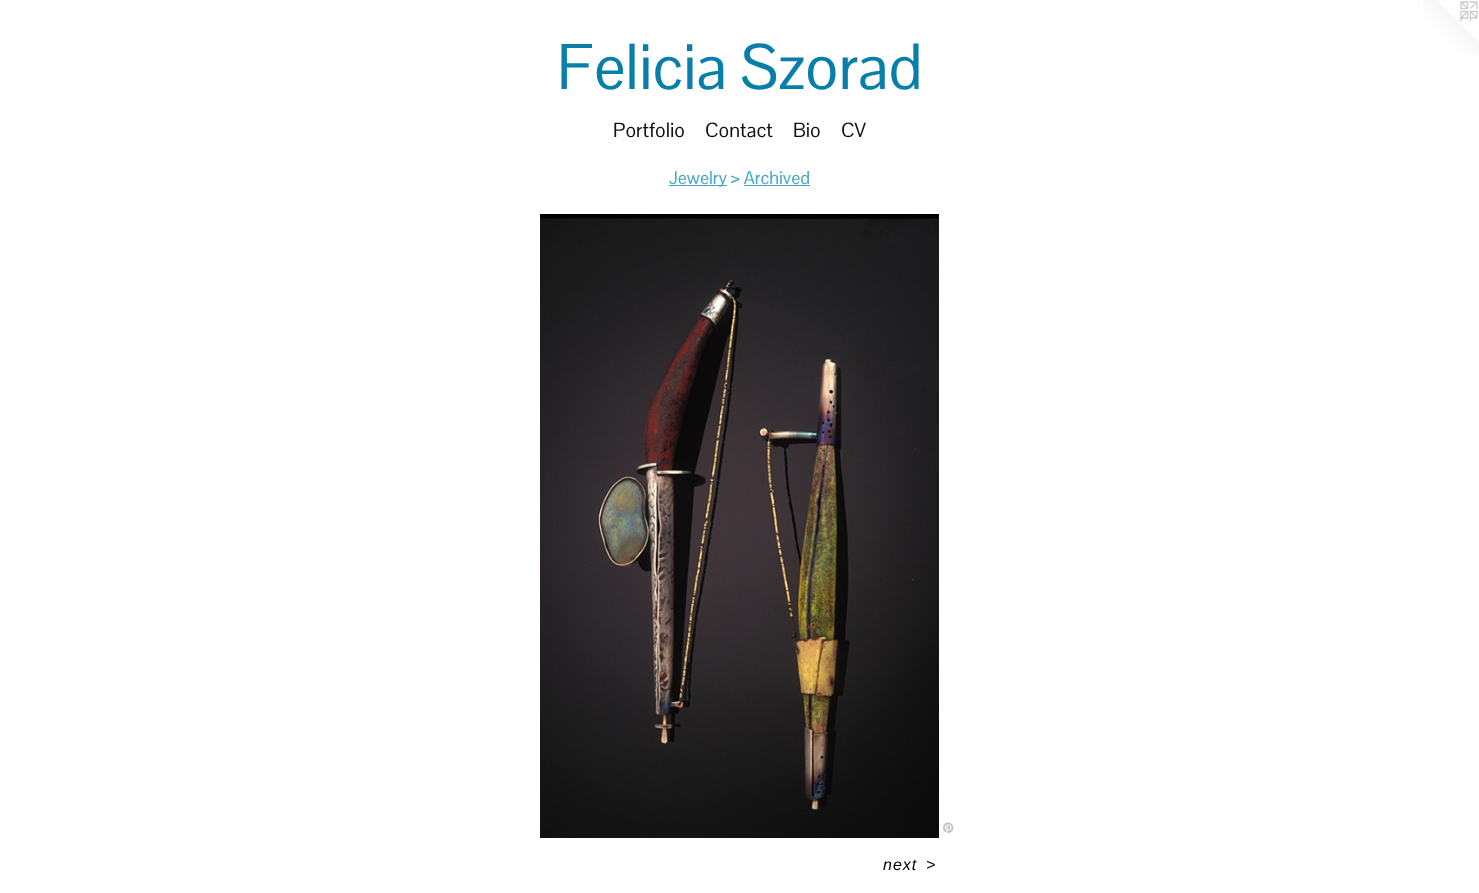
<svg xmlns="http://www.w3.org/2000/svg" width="1479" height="893">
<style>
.a{font:63px Pontano Sans;fill:#087faa}
.b{font:20px Pontano Sans;fill:#111310}
.c{font:18px Pontano Sans;fill:#46a6c3}
.d{font:italic 16px Liberation Sans;letter-spacing:1px;fill:#000}
</style>
<rect width="100%" height="100%" fill="#fff"/>
<image href="1.png" x="1423" y="0" width="56" height="56"/>
<path fill="#46a6c3" d="M669 185h58v1H669z"/>
<path fill="#46a6c3" d="M744 185h66v1H744z"/>
<image href="2.png" x="540" y="214" width="399" height="624"/>
<image href="3.png" x="943" y="822" width="11" height="11"/>
<text class="a" x="557" y="89">Felicia Szorad</text>
<text class="b" x="613" y="137">Portfolio</text>
<text class="b" x="705" y="137">Contact</text>
<text class="b" x="793" y="137">Bio</text>
<text class="b" x="841" y="137">CV</text>
<text class="c" x="669" y="184">Jewelry &gt; Archived</text>
<text class="d" x="883" y="870">next</text>
<text class="d" x="926" y="870">&gt;</text>
</svg>
